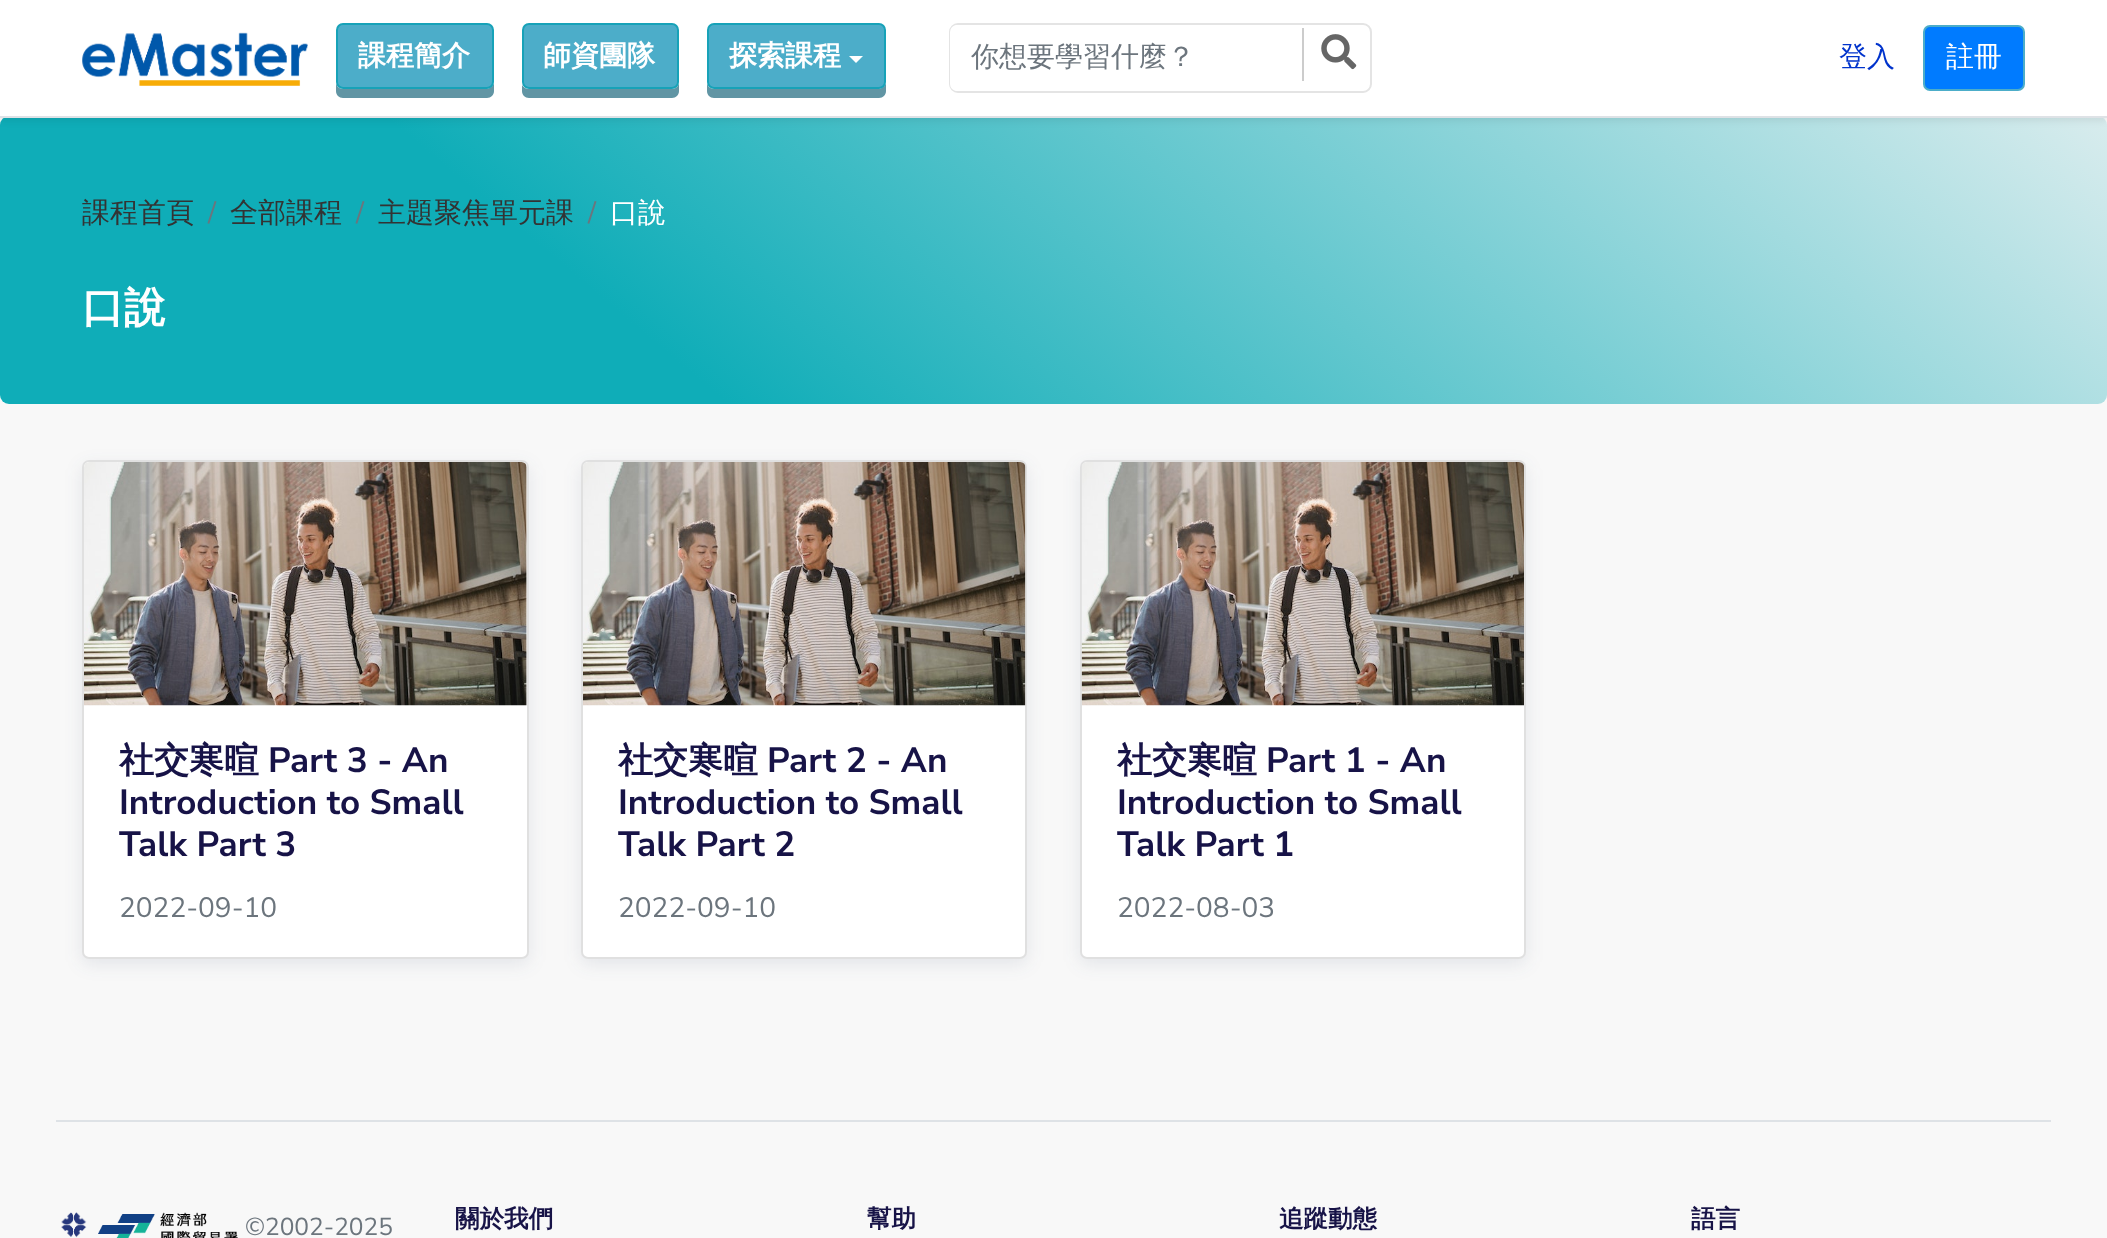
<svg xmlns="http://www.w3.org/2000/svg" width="2107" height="1238">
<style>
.a{font:bold 28px WenQuanYi Zen Hei;fill:#fff}
.b{font:500 28px WenQuanYi Zen Hei;fill:#6c757d}
.c{font:500 28px WenQuanYi Zen Hei;fill:#03c}
.d{font:500 28px WenQuanYi Zen Hei;fill:#fff}
.e{font:500 28px WenQuanYi Zen Hei;fill:#333}
.f{font:28px Nunito Sans;fill:#6c757d}
.g{font:bold 42px WenQuanYi Zen Hei;fill:#fff}
.h{font:bold 35px WenQuanYi Zen Hei;fill:#171347}
.i{font:bold 35px Nunito Sans;fill:#171347}
.j{font:24.5px Nunito Sans;fill:#6c757d}
.k{font:bold 24.5px WenQuanYi Zen Hei;fill:#171347}
</style>
<defs>
<linearGradient id="g1" gradientUnits="userSpaceOnUse" x1="1661" y1="-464" x2="547" y2="863"><stop offset="0" stop-color="#f5f5f5"/><stop offset="0.73" stop-color="#0fadb8"/></linearGradient>
<clipPath id="clip1"><path d="M618 740h373v126H618z"/></clipPath>
<clipPath id="clip2"><path d="M1117 740h372v126H1117z"/></clipPath>
</defs>
<rect width="100%" height="100%" fill="#f8f8f8"/>
<rect fill="url(#g1)" y="116" width="2107" height="288" rx="9"/>
<path fill="#00000012" filter="blur(3.5px)" d="M0 4h2107v117H0z"/>
<path fill="#fff" d="M0 0h2107v116H0z"/>
<path fill="#dee2e6" d="M0 116h2107v2H0z"/>
<image href="1.png" x="82" y="32" width="226" height="54"/>
<path fill="#6195a4" d="M336 82v9c0 4 3 7 7 7h144c4 0 7-3 7-7v-52v-3v46c0 4-4 7-8 7h-143c-4 0-7-3-7-7z"/>
<rect fill="#4cadc9" stroke="#17a2b8" stroke-width="2" x="337" y="24" width="156" height="64" rx="6"/>
<path fill="#6195a4" d="M522 85v6c0 4 3 7 7 7h143c4 0 7-3 7-7v-9c0 4-3 7-7 7h-144c-2 0-5-2-6-4z"/>
<rect fill="#4cadc9" stroke="#17a2b8" stroke-width="2" x="523" y="24" width="155" height="64" rx="6"/>
<path fill="#6195a4" d="M707 82v9c0 4 3 7 7 7h165c4 0 7-3 7-7v-52v-3v46c0 4-4 7-8 7h-164c-4 0-7-3-7-7z"/>
<rect fill="#4cadc9" stroke="#17a2b8" stroke-width="2" x="708" y="24" width="177" height="64" rx="6"/>
<path fill="#fff" d="M849 56h14l-7 7z"/>
<rect fill="none" stroke="#e4e4e4" stroke-width="2" x="950" y="24" width="421" height="68" rx="8"/>
<rect fill="#fff" x="950" y="25" width="352" height="66" rx="7"/>
<path fill="#ccc" d="M1302 28h2v53H1302z"/>
<image href="2.png" x="1321" y="34" width="36" height="36"/>
<rect fill="#007bff" stroke="#4cadc9" stroke-width="2" x="1924" y="26" width="100" height="64" rx="6"/>
<rect fill="#263b5e1a" filter="blur(9px)" x="82" y="466" width="447" height="498" rx="7"/>
<rect fill="#fff" x="82" y="460" width="447" height="499" rx="7"/>
<rect fill="none" stroke="#0000001f" stroke-width="2" x="83" y="461" width="445" height="497" rx="6"/>
<image href="3.png" x="84" y="462" width="443" height="244"/>
<rect fill="#263b5e1a" filter="blur(9px)" x="581" y="466" width="446" height="498" rx="7"/>
<rect fill="#fff" x="581" y="460" width="446" height="499" rx="7"/>
<rect fill="none" stroke="#0000001f" stroke-width="2" x="582" y="461" width="444" height="497" rx="6"/>
<image href="4.png" x="583" y="462" width="443" height="244"/>
<rect fill="#263b5e1a" filter="blur(9px)" x="1080" y="466" width="446" height="498" rx="7"/>
<rect fill="#fff" x="1080" y="460" width="446" height="499" rx="7"/>
<rect fill="none" stroke="#0000001f" stroke-width="2" x="1081" y="461" width="444" height="497" rx="6"/>
<image href="5.png" x="1081" y="462" width="443" height="244"/>
<path fill="#dee2e6" d="M56 1120h1995v2H56z"/>
<image href="6.png" x="61" y="1212" width="26" height="26"/>
<image href="7.png" x="98" y="1212" width="140" height="26"/>
<text class="a" x="358" y="65">課程簡介</text>
<text class="a" x="543" y="65">師資團隊</text>
<text class="a" x="729" y="65">探索課程</text>
<text class="b" x="971" y="66">你想要學習什麼？</text>
<text class="c" x="1839" y="66">登入</text>
<text class="d" x="1946" y="66">註冊</text>
<text class="e" x="82" y="222">課程首頁</text>
<text class="f" x="208" y="222">/</text>
<text class="e" x="230" y="222">全部課程</text>
<text class="f" x="356" y="222">/</text>
<text class="e" x="378" y="222">主題聚焦單元課</text>
<text class="f" x="588" y="222">/</text>
<text class="d" x="610" y="222">口說</text>
<text class="g" x="82" y="322">口說</text>
<text class="h" x="119" y="772">社交寒暄</text>
<text class="i" x="268" y="772">Part 3 - An</text>
<text class="i" x="119" y="814">Introduction to Small</text>
<text class="i" x="119" y="856">Talk Part 3</text>
<text class="f" x="119" y="917">2022-09-10</text>
<text class="h" x="618" y="772">社交寒暄</text>
<text class="i" x="767" y="772">Part 2 - An</text>
<text class="i" x="618" y="814">Introduction to Small</text>
<g clip-path="url(#clip1)">
<text class="i" x="618" y="856">Talk Part 2</text>
</g>
<text class="f" x="618" y="917">2022-09-10</text>
<text class="h" x="1117" y="772">社交寒暄</text>
<text class="i" x="1266" y="772">Part 1 - An</text>
<text class="i" x="1117" y="814">Introduction to Small</text>
<g clip-path="url(#clip2)">
<text class="i" x="1117" y="856">Talk Part 1</text>
</g>
<text class="f" x="1117" y="917">2022-08-03</text>
<text class="j" x="245" y="1235">©2002-2025</text>
<text class="k" x="455" y="1227">關於我們</text>
<text class="k" x="867" y="1227">幫助</text>
<text class="k" x="1279" y="1227">追蹤動態</text>
<text class="k" x="1691" y="1227">語言</text>
</svg>
